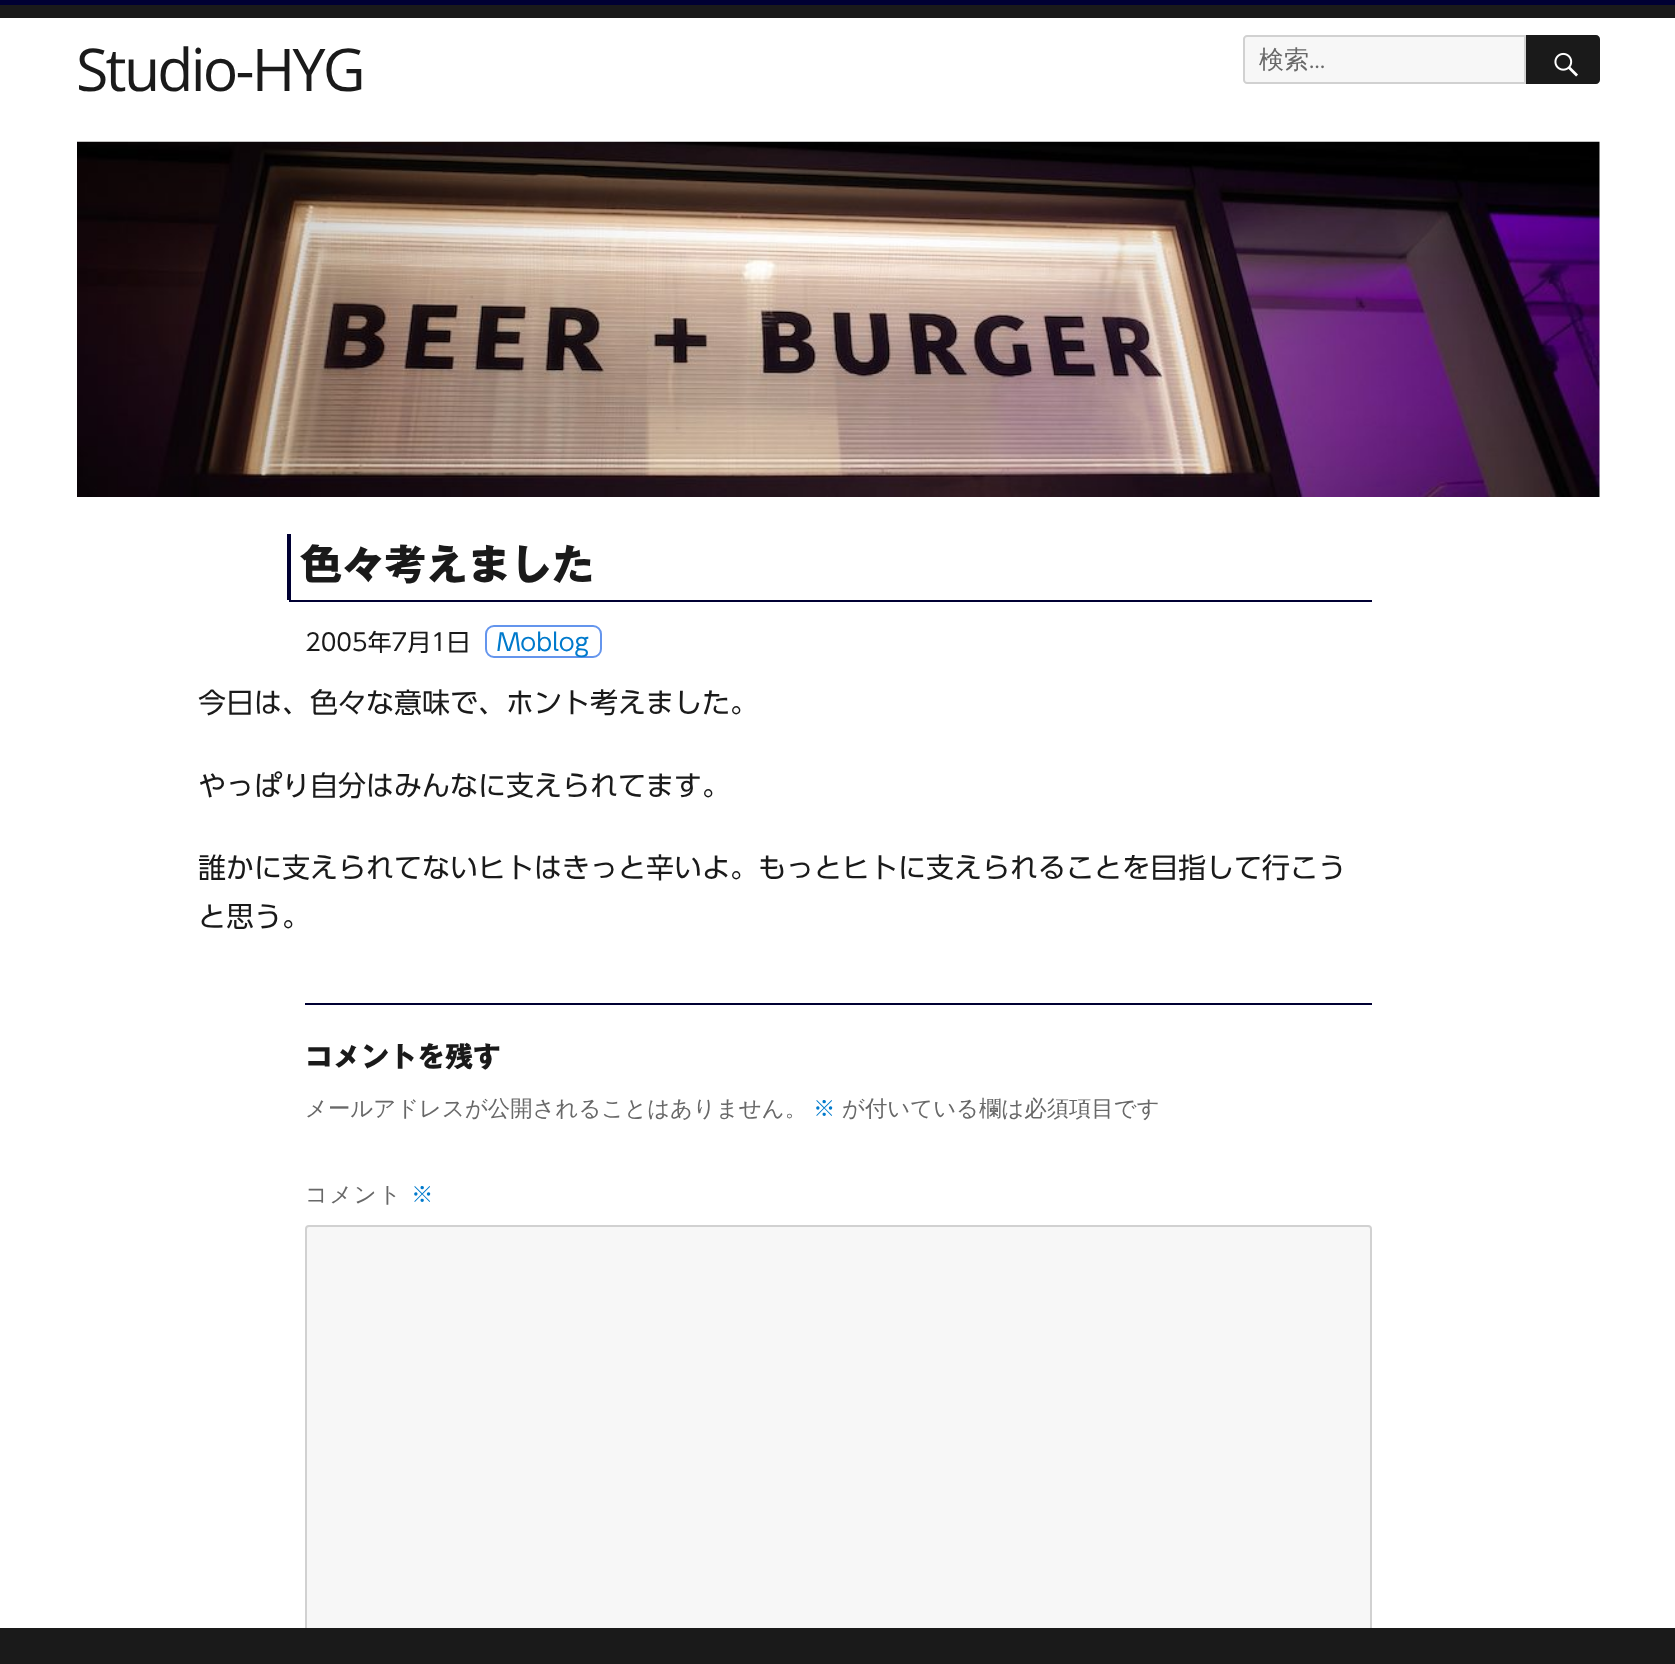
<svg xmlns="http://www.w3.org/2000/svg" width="1675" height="1664">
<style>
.a{font:59px Open Sans;letter-spacing:-2.75px;fill:#1a1a1a}
.b{font:500 25px WenQuanYi Zen Hei;fill:#686868}
.c{font:100 25px Montserrat;fill:#686868}
.d{font:bold 42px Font;fill:#1a1a1a}
.e{font:23.75px Font;fill:#1a1a1a}
.f{font:23.75px Font;fill:#007acc}
.g{font:28px Font;fill:#1a1a1a}
.h{font:bold 28px Font;fill:#1a1a1a}
.i{font:500 22.4px WenQuanYi Zen Hei;fill:#686868}
.j{font:500 22.4px WenQuanYi Zen Hei;fill:#007acc}
.k{font:500 22.4px WenQuanYi Zen Hei;letter-spacing:1.5px;fill:#686868}
.l{font:500 22.4px WenQuanYi Zen Hei;letter-spacing:1.5px;fill:#007acc}
</style>
<rect width="100%" height="100%" fill="#1a1a1a"/>
<path fill="#003" d="M0 0h1675v5H0z"/>
<path fill="#fff" d="M0 18h1675v1610H0z"/>
<path fill="#f7f7f7" stroke="#d1d1d1" stroke-width="2" d="M1247 36h278v47h-278c-1.5 0-3-1.5-3-3v-41c0-1.5 1.5-3 3-3z"/>
<path fill="#1a1a1a" d="M1526 35h70c2 0 4 2 4 4v41c0 2-2 4-4 4h-70z"/>
<image href="1.png" x="1554" y="52" width="24" height="25"/>
<image href="2.png" x="77" y="141" width="1523" height="356"/>
<path fill="#003" d="M289 600h1083v2H289z"/>
<path fill="#003" d="M287 534h4v66H287z"/>
<rect fill="none" stroke="#6495ed" stroke-width="2" x="486" y="626" width="115" height="31" rx="8"/>
<path fill="#003" d="M305 1003h1067v2H305z"/>
<rect fill="#f7f7f7" stroke="#d1d1d1" stroke-width="2" x="306" y="1226" width="1065" height="429" rx="3"/>
<path fill="#1a1a1a" d="M305 1628h1067v28H305z"/>
<text class="a" x="76" y="91">Studio-HYG</text>
<text class="b" x="1259" y="68">検索</text>
<text class="c" x="1309" y="68">…</text>
<text class="d" x="300" y="580">色々考えました</text>
<text class="e" x="305" y="651">2005年7月1日</text>
<text class="f" x="497" y="651">Moblog</text>
<text class="g" x="198" y="713">今日は、色々な意味で、ホント考えました。</text>
<text class="g" x="198" y="796">やっぱり自分はみんなに支えられてます。</text>
<text class="g" x="198" y="878">誰かに支えられてないヒトはきっと辛いよ。もっとヒトに支えられることを目指して行こう</text>
<text class="g" x="198" y="927">と思う。</text>
<text class="h" x="305" y="1067">コメントを残す</text>
<text class="i" x="305" y="1116">メールアドレスが公開されることはありません。</text>
<text class="j" x="813" y="1116">※</text>
<text class="i" x="842" y="1116">が付いている欄は必須項目です</text>
<text class="k" x="305" y="1202">コメント</text>
<text class="l" x="411" y="1202">※</text>
</svg>
